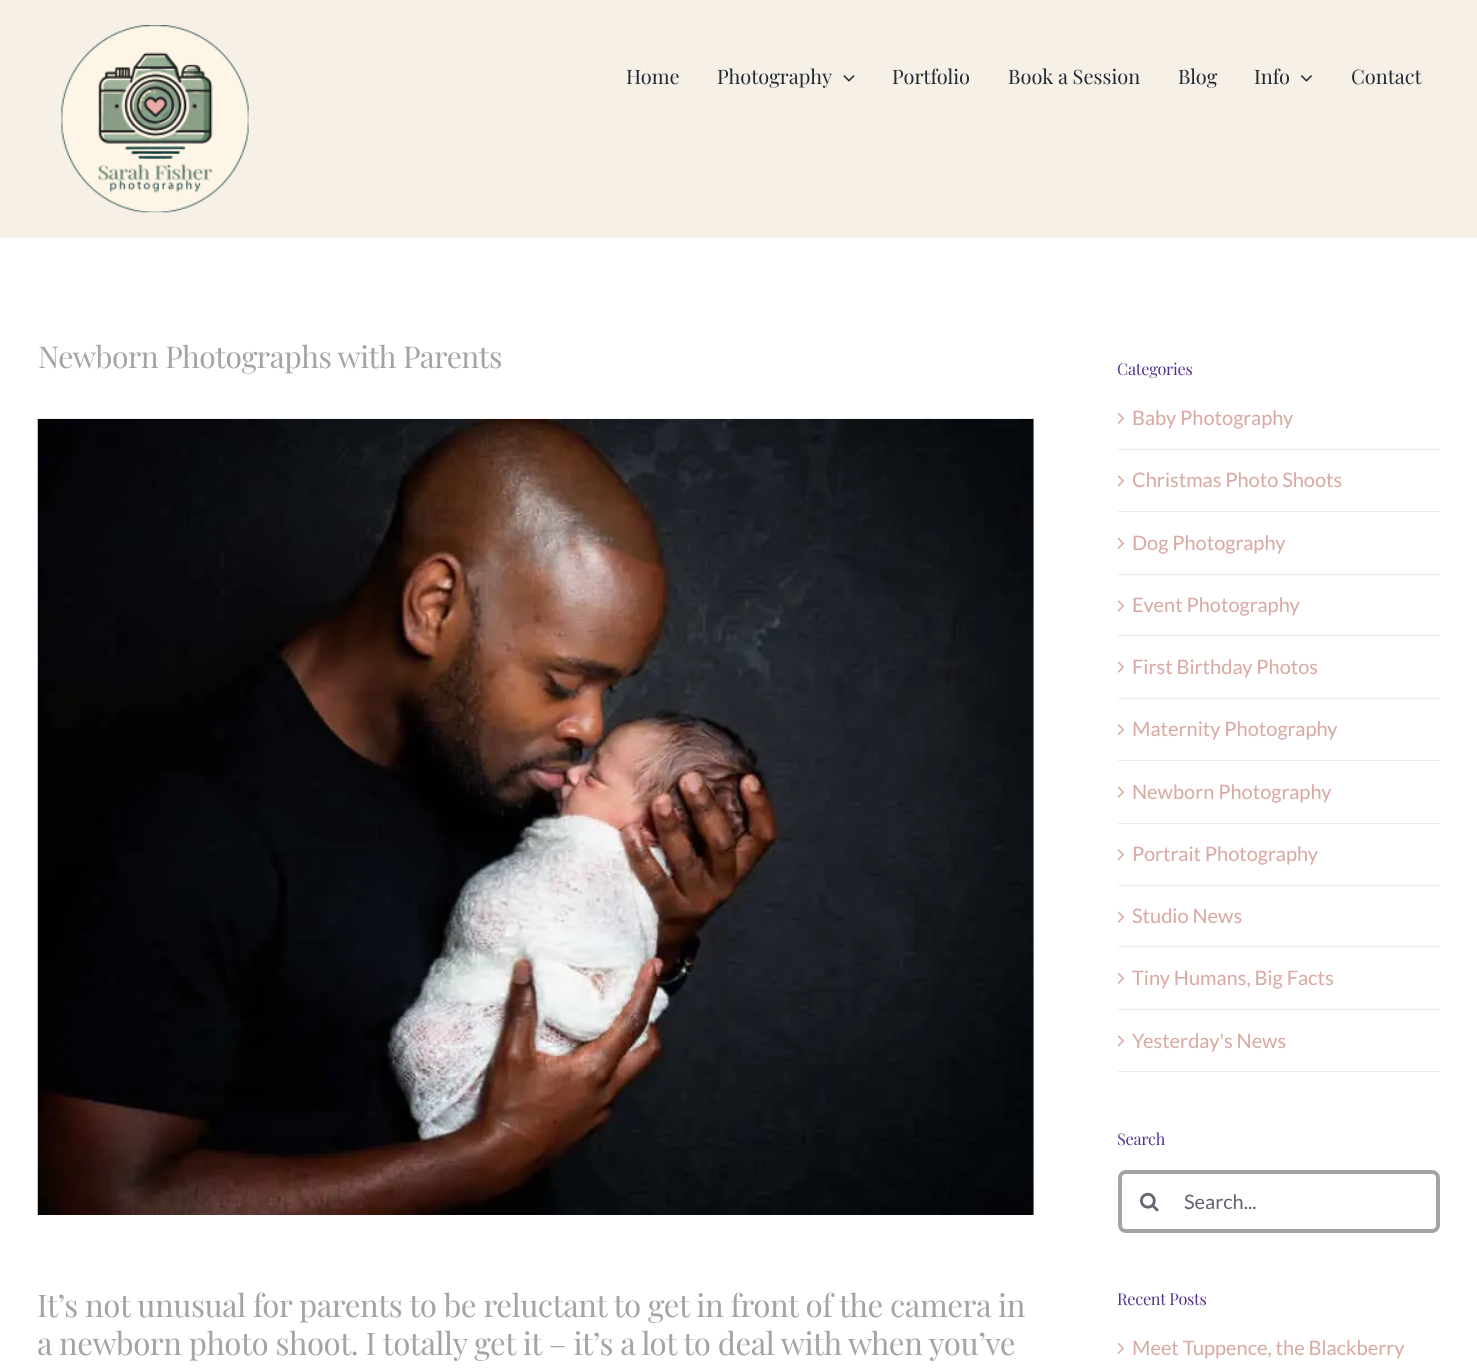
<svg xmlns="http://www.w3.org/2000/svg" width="1477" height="1369">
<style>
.a{font:20px Playfair Display;fill:#212934}
.b{font:30px Playfair Display;letter-spacing:-0.45px;fill:#a4a4a4}
.c{font:31.25px Playfair Display;letter-spacing:-0.47px;fill:#a4a4a4}
.d{font:16.25px Playfair Display;letter-spacing:-0.25px;fill:#55328b}
.e{font:20px Lato;fill:#d9a9a3}
.f{font:20px Lato;fill:#676371}
</style>
<rect width="100%" height="100%" fill="#fff"/>
<path fill="#f6f0e7" d="M0 0h1477v238H0z"/>
<image href="1.png" x="61" y="25" width="188" height="188"/>
<image href="2.png" x="843" y="75" width="12" height="7"/>
<image href="3.png" x="1300" y="75" width="12" height="7"/>
<image href="4.png" x="37" y="418" width="997" height="797"/>
<path fill="#ececed" d="M1118 449h322v1H1118z"/>
<image href="5.png" x="1117" y="412" width="7" height="12"/>
<path fill="#ececed" d="M1118 511h322v1H1118z"/>
<image href="6.png" x="1117" y="475" width="7" height="12"/>
<path fill="#ececed" d="M1118 574h322v1H1118z"/>
<image href="5.png" x="1117" y="537" width="7" height="12"/>
<path fill="#ececed" d="M1118 635h322v1H1118z"/>
<image href="6.png" x="1117" y="600" width="7" height="12"/>
<path fill="#ececed" d="M1118 698h322v1H1118z"/>
<image href="7.png" x="1117" y="661" width="7" height="12"/>
<path fill="#ececed" d="M1118 760h322v1H1118z"/>
<image href="8.png" x="1117" y="724" width="7" height="12"/>
<path fill="#ececed" d="M1118 823h322v1H1118z"/>
<image href="7.png" x="1117" y="786" width="7" height="12"/>
<path fill="#ececed" d="M1118 885h322v1H1118z"/>
<image href="8.png" x="1117" y="849" width="7" height="12"/>
<path fill="#ececed" d="M1118 946h322v1H1118z"/>
<image href="7.png" x="1117" y="911" width="7" height="12"/>
<path fill="#ececed" d="M1118 1009h322v1H1118z"/>
<image href="5.png" x="1117" y="972" width="7" height="12"/>
<path fill="#ececed" d="M1118 1071h322v1H1118z"/>
<image href="6.png" x="1117" y="1035" width="7" height="12"/>
<rect fill="none" stroke="#a4a4a4" stroke-width="4" x="1120" y="1172" width="318" height="59" rx="6"/>
<image href="9.png" x="1140" y="1192" width="19" height="20"/>
<image href="5.png" x="1117" y="1342" width="7" height="12"/>
<text class="a" x="626" y="84">Home</text>
<text class="a" x="717" y="84">Photography</text>
<text class="a" x="892" y="84">Portfolio</text>
<text class="a" x="1008" y="84">Book a Session</text>
<text class="a" x="1178" y="84">Blog</text>
<text class="a" x="1254" y="84">Info</text>
<text class="a" x="1351" y="84">Contact</text>
<text class="b" x="38" y="368">Newborn Photographs with Parents</text>
<text class="c" x="37" y="1317">It’s not unusual for parents to be reluctant to get in front of the camera in</text>
<text class="c" x="37" y="1355">a newborn photo shoot. I totally get it – it’s a lot to deal with when you’ve</text>
<text class="d" x="1117" y="375">Categories</text>
<text class="e" x="1132" y="425">Baby Photography</text>
<text class="e" x="1132" y="487">Christmas Photo Shoots</text>
<text class="e" x="1132" y="550">Dog Photography</text>
<text class="e" x="1132" y="612">Event Photography</text>
<text class="e" x="1132" y="674">First Birthday Photos</text>
<text class="e" x="1132" y="736">Maternity Photography</text>
<text class="e" x="1132" y="799">Newborn Photography</text>
<text class="e" x="1132" y="861">Portrait Photography</text>
<text class="e" x="1132" y="923">Studio News</text>
<text class="e" x="1132" y="985">Tiny Humans, Big Facts</text>
<text class="e" x="1132" y="1048">Yesterday's News</text>
<text class="d" x="1117" y="1145">Search</text>
<text class="f" x="1184" y="1209">Search...</text>
<text class="d" x="1117" y="1305">Recent Posts</text>
<text class="e" x="1132" y="1355">Meet Tuppence, the Blackberry</text>
</svg>
